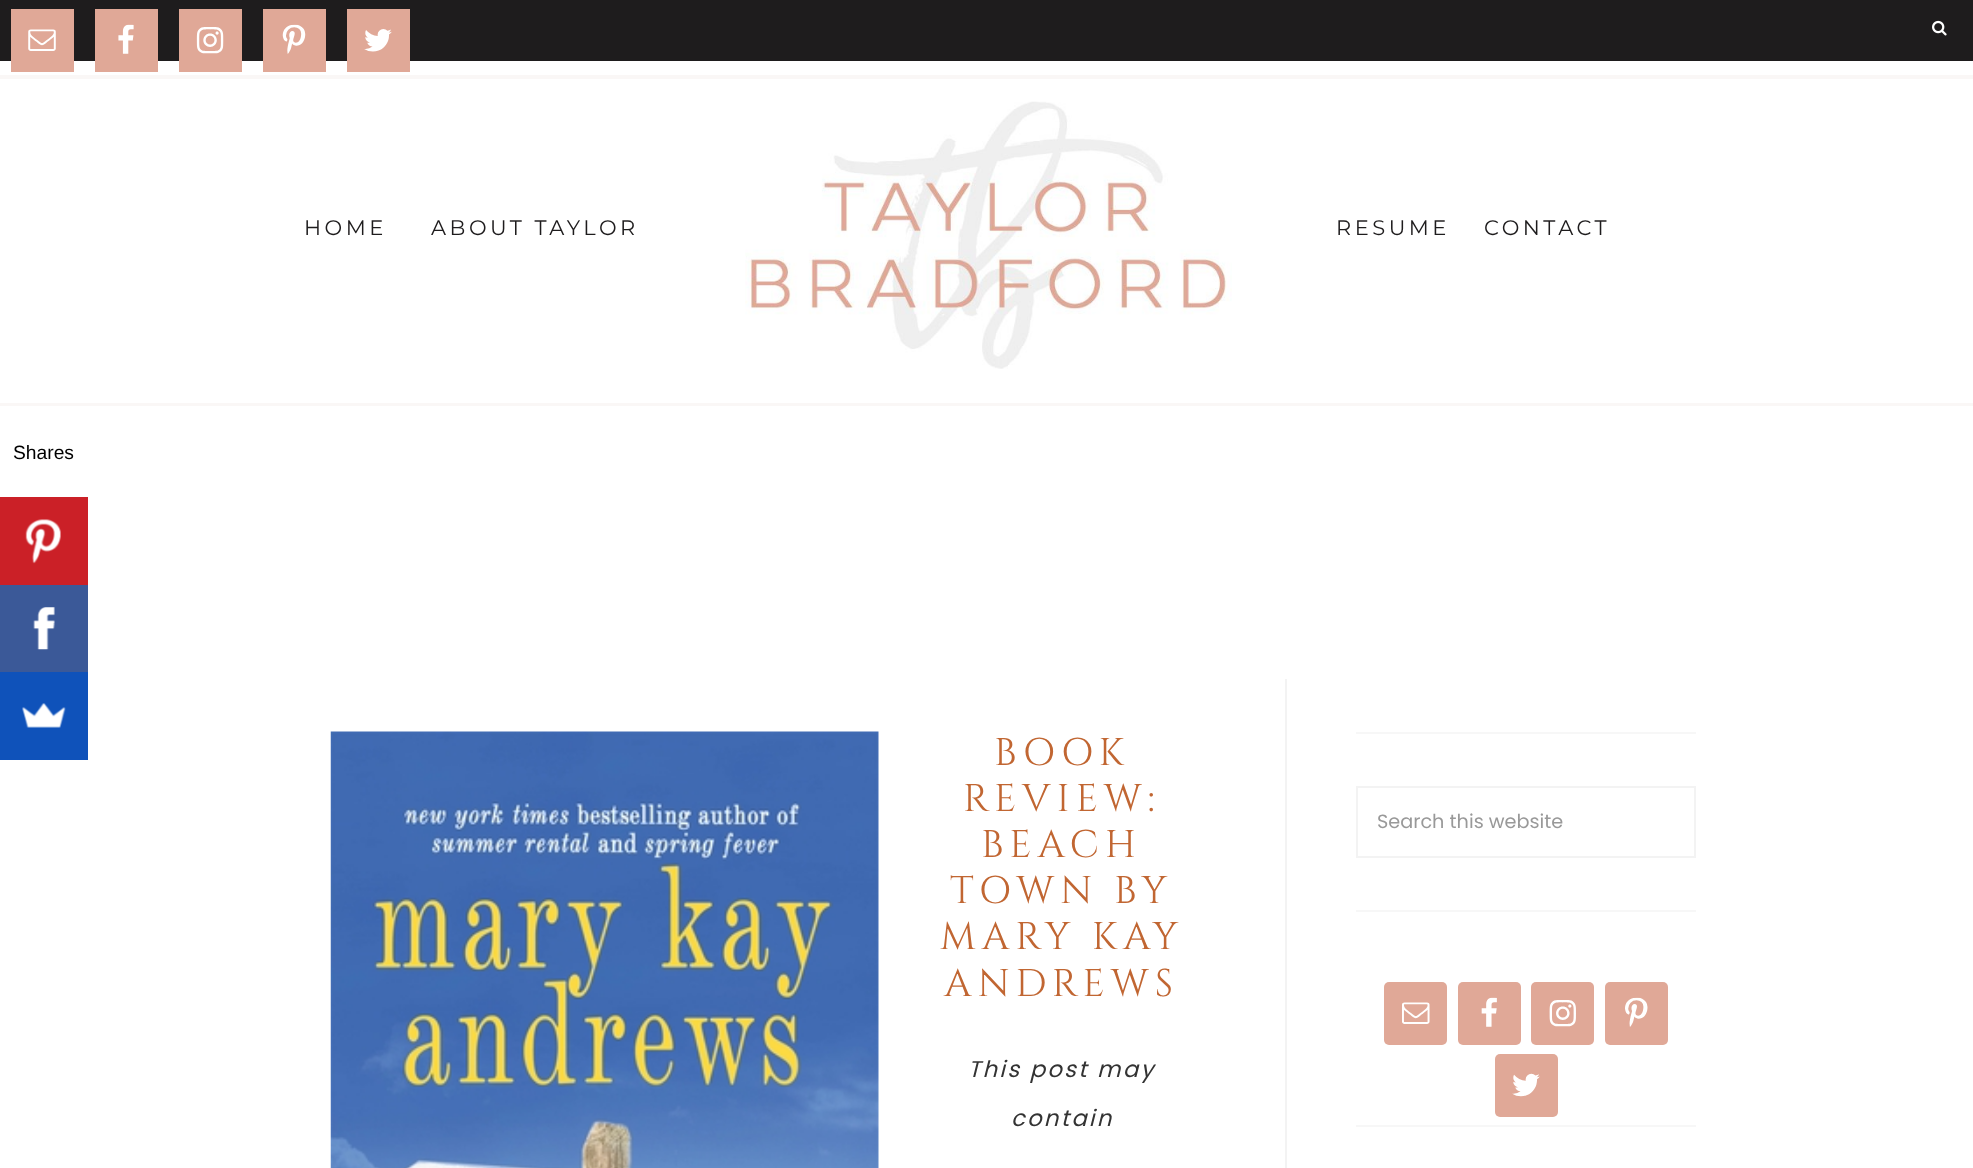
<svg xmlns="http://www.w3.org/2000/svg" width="1973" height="1168">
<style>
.a{font:19.25px Liberation Sans;fill:#000}
.b{font:21px Montserrat;letter-spacing:3.5px;fill:#1e1c1d}
.c{font:38.5px Cinzel;letter-spacing:6px;fill:#c16632}
.d{font:italic 22.75px Poppins;letter-spacing:2.25px;fill:#333}
.e{font:19.25px Poppins;fill:#999}
</style>
<rect width="100%" height="100%" fill="#fff"/>
<path fill="#cb2027" d="M0 497h88v88H0z"/>
<image href="1.png" x="25" y="519" width="36" height="45"/>
<path fill="#3b5998" d="M0 585h88v87H0z"/>
<image href="2.png" x="33" y="607" width="22" height="43"/>
<path fill="#0f52ba" d="M0 672h88v88H0z"/>
<image href="3.png" x="22" y="703" width="44" height="25"/>
<path fill="#1e1c1d" d="M0 0h1973v61H0z"/>
<path fill="#e0a897" d="M11 9h63v63H11z"/>
<image href="4.png" x="28" y="29" width="28" height="22"/>
<path fill="#e0a897" d="M95 9h63v63H95z"/>
<image href="5.png" x="118" y="24" width="16" height="30"/>
<path fill="#e0a897" d="M179 9h63v63H179z"/>
<image href="6.png" x="196" y="27" width="28" height="27"/>
<path fill="#e0a897" d="M263 9h63v63H263z"/>
<image href="7.png" x="282" y="24" width="24" height="30"/>
<path fill="#e0a897" d="M347 9h63v63H347z"/>
<image href="8.png" x="364" y="29" width="28" height="23"/>
<image href="9.png" x="1932" y="20" width="15" height="16"/>
<path fill="#faf7f6" d="M0 75h1973v4H0z"/>
<path fill="#faf7f6" d="M0 403h1973v3H0z"/>
<image href="10.png" x="745" y="101" width="487" height="268"/>
<image href="11.png" x="330" y="731" width="549" height="437"/>
<path fill="#f3f3f3" d="M1285 679h2v489H1285z"/>
<path fill="#f7f7f7" d="M1356 732h340v2H1356z"/>
<path fill="#f7f7f7" d="M1356 910h340v2H1356z"/>
<path fill="none" stroke="#f3f3f3" stroke-width="2" d="M1357 787h338v70H1357z"/>
<path fill="#f7f7f7" d="M1356 1125h340v2H1356z"/>
<rect fill="#e0a897" x="1384" y="982" width="63" height="63" rx="5"/>
<image href="12.png" x="1402" y="1002" width="28" height="22"/>
<rect fill="#e0a897" x="1458" y="982" width="63" height="63" rx="5"/>
<image href="13.png" x="1481" y="997" width="16" height="30"/>
<rect fill="#e0a897" x="1531" y="982" width="63" height="63" rx="5"/>
<image href="14.png" x="1549" y="1000" width="27" height="27"/>
<rect fill="#e0a897" x="1605" y="982" width="63" height="63" rx="5"/>
<image href="15.png" x="1625" y="997" width="23" height="30"/>
<rect fill="#e0a897" x="1495" y="1054" width="63" height="63" rx="5"/>
<image href="16.png" x="1512" y="1073" width="28" height="24"/>
<text class="a" x="13" y="459">Shares</text>
<text class="b" x="304" y="235">HOME</text>
<text class="b" x="431" y="235">ABOUT TAYLOR</text>
<text class="b" x="1336" y="235">RESUME</text>
<text class="b" x="1484" y="235">CONTACT</text>
<text class="c" x="994" y="765">BOOK</text>
<text class="c" x="963" y="811">REVIEW:</text>
<text class="c" x="981" y="857">BEACH</text>
<text class="c" x="950" y="903">TOWN BY</text>
<text class="c" x="940" y="949">MARY KAY</text>
<text class="c" x="944" y="996">ANDREWS</text>
<text class="d" x="968" y="1077">This post may</text>
<text class="d" x="1011" y="1126">contain</text>
<text class="e" x="1377" y="828">Search this website</text>
</svg>
